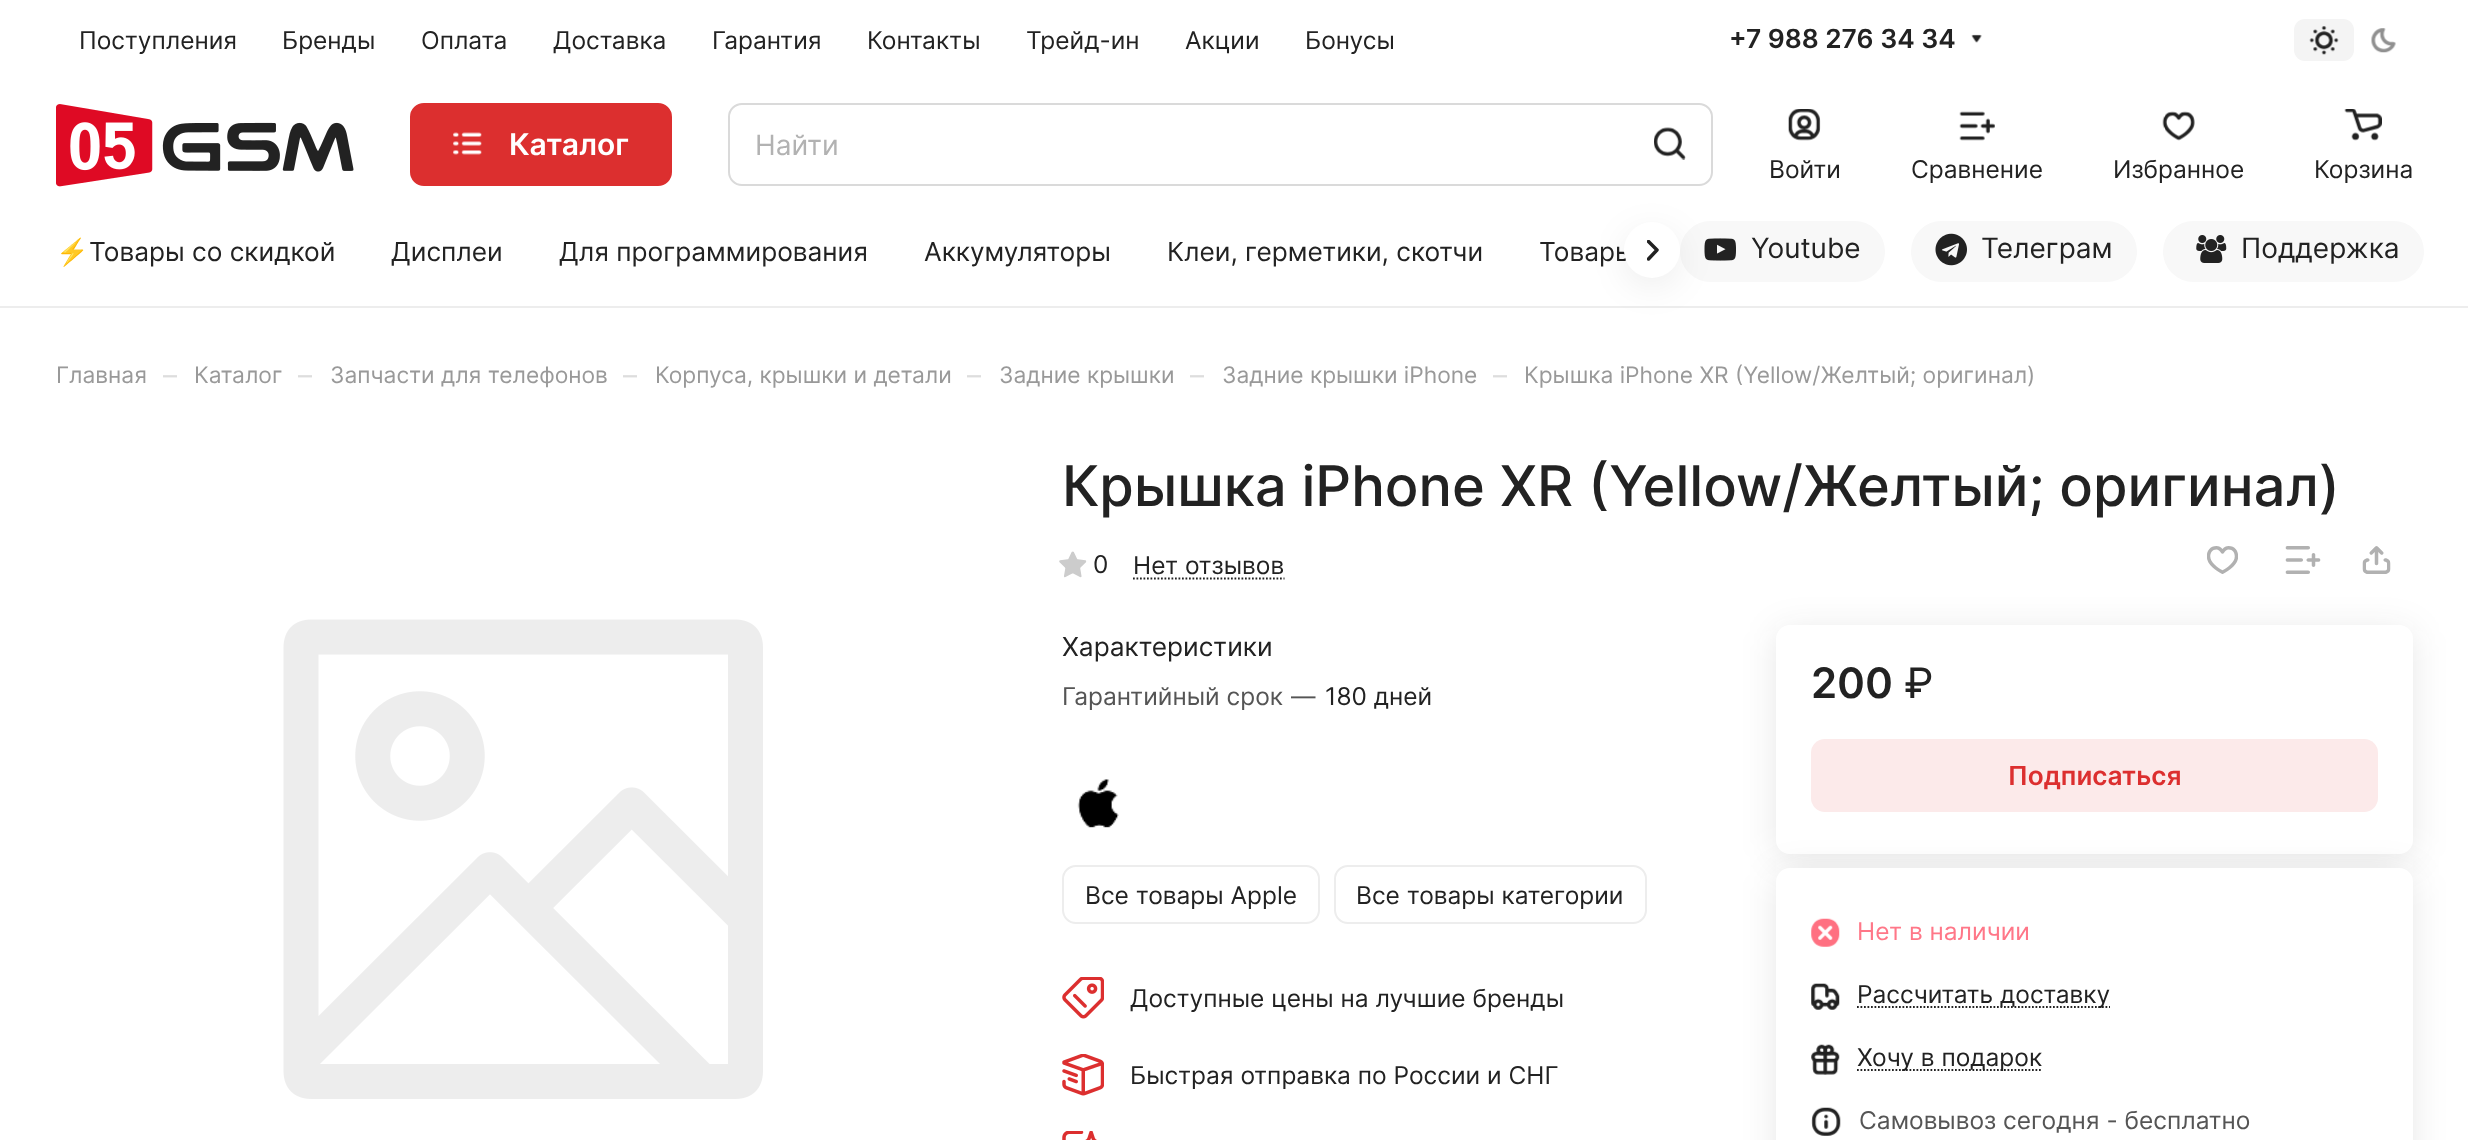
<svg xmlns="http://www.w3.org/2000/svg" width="2468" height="1140">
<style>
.a{font:24.5px Inter;fill:#222}
.b{font:600 26.25px Inter;fill:#222}
.c{font:600 30px Inter;fill:#fff}
.d{font:28px Inter;fill:#b2b2b2}
.e{font:26.25px Noto Color Emoji;fill:#222}
.f{font:26.25px Inter;fill:#222}
.g{font:28px Inter;fill:#222}
.h{font:22.75px Inter;fill:#999}
.i{font:28px Inter;fill:#ddd}
.j{font:500 56px Inter;fill:#222}
.k{font:24.5px Inter;fill:#555}
.l{font:600 42px Inter;fill:#222}
.m{font:42px 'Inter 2';fill:#222}
.n{font:600 26.25px Inter;fill:#dc2f2f}
.o{font:24.5px Inter;fill:#f78}
</style>
<defs>
<clipPath id="clip1"><path d="M1647 240h12v21H1647z"/></clipPath>
</defs>
<rect width="100%" height="100%" fill="#fff"/>
<path fill="#ededed" d="M0 306h2468v2H0z"/>
<image href="1.png" x="1971" y="34" width="11" height="9"/>
<rect fill="#f4f4f4" x="2294" y="19" width="60" height="42" rx="11"/>
<image href="2.png" x="2309" y="26" width="30" height="29"/>
<image href="3.png" x="2371" y="28" width="25" height="25"/>
<image href="4.png" x="56" y="104" width="298" height="83"/>
<rect fill="#dc2f2f" stroke="#dc2f2f" stroke-width="2" x="411" y="104" width="260" height="81" rx="13"/>
<image href="5.png" x="453" y="132" width="29" height="23"/>
<rect fill="#f8f8f8" x="1680" y="221" width="205" height="61" rx="30.5"/>
<image href="11.png" x="1704" y="238" width="32" height="23"/>
<rect fill="#00000012" filter="blur(17.5px)" x="1624" y="231" width="56" height="56" rx="28"/>
<rect fill="none" stroke="#dadada" stroke-width="2" x="729" y="104" width="983" height="81" rx="13"/>
<image href="6.png" x="1654" y="127" width="32" height="33"/>
<image href="7.png" x="1788" y="109" width="33" height="32"/>
<image href="8.png" x="1959" y="111" width="36" height="30"/>
<image href="9.png" x="2162" y="111" width="33" height="30"/>
<image href="10.png" x="2344" y="109" width="38" height="32"/>
<rect fill="#f8f8f8" x="1911" y="221" width="226" height="61" rx="30.5"/>
<image href="12.png" x="1935" y="233" width="32" height="33"/>
<rect fill="#f8f8f8" x="2163" y="221" width="261" height="61" rx="30.5"/>
<image href="13.png" x="2196" y="235" width="31" height="28"/>
<image href="14.png" x="283" y="619" width="480" height="480"/>
<image href="15.png" x="1059" y="551" width="28" height="27"/>
<path fill="none" stroke="#222" stroke-width="1.8" stroke-dasharray="1.75 1.75" d="M1133 578.5h151.5"/>
<image href="16.png" x="2207" y="546" width="31" height="28"/>
<image href="17.png" x="2285" y="546" width="36" height="28"/>
<image href="18.png" x="2362" y="546" width="29" height="28"/>
<image href="19.png" x="1077" y="779" width="42" height="49"/>
<rect fill="none" stroke="#ededed" stroke-width="2" x="1063" y="866" width="256" height="57" rx="13"/>
<rect fill="none" stroke="#ededed" stroke-width="2" x="1335" y="866" width="311" height="57" rx="13"/>
<image href="20.png" x="1062" y="977" width="42" height="42"/>
<image href="21.png" x="1062" y="1054" width="42" height="42"/>
<image href="22.png" x="1062" y="1131" width="35" height="9"/>
<rect fill="#2222221a" filter="blur(17.5px)" x="1776" y="630" width="637" height="229" rx="14"/>
<rect fill="#fff" x="1776" y="625" width="637" height="229" rx="14"/>
<rect fill="#fceaea" x="1811" y="739" width="567" height="73" rx="14"/>
<rect fill="#2222221a" filter="blur(17.5px)" x="1776" y="873" width="637" height="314" rx="14"/>
<rect fill="#fff" x="1776" y="868" width="637" height="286" rx="14"/>
<image href="23.png" x="1811" y="918" width="29" height="29"/>
<image href="24.png" x="1811" y="983" width="29" height="27"/>
<path fill="none" stroke="#222" stroke-width="1.8" stroke-dasharray="1.75 1.75" d="M1857 1007h253"/>
<image href="25.png" x="1811" y="1044" width="29" height="31"/>
<path fill="none" stroke="#222" stroke-width="1.8" stroke-dasharray="1.75 1.75" d="M1857 1070h185"/>
<image href="26.png" x="1811" y="1107" width="30" height="29"/>
<text class="a" x="79" y="49">Поступления</text>
<text class="a" x="282" y="49">Бренды</text>
<text class="a" x="421" y="49">Оплата</text>
<text class="a" x="553" y="49">Доставка</text>
<text class="a" x="712" y="49">Гарантия</text>
<text class="a" x="867" y="49">Контакты</text>
<text class="a" x="1026" y="49">Трейд-ин</text>
<text class="a" x="1185" y="49">Акции</text>
<text class="a" x="1305" y="49">Бонусы</text>
<text class="b" x="1729" y="48">+7 988 276 34 34</text>
<text class="c" x="509" y="155">Каталог</text>
<text class="d" x="755" y="155">Найти</text>
<text class="a" x="1769" y="178">Войти</text>
<text class="a" x="1911" y="178">Сравнение</text>
<text class="a" x="2113" y="178">Избранное</text>
<text class="a" x="2314" y="178">Корзина</text>
<text class="e" x="56" y="261">⚡️</text>
<text class="f" x="89" y="261">Товары со скидкой</text>
<text class="f" x="391" y="261">Дисплеи</text>
<text class="f" x="559" y="261">Для программирования</text>
<text class="f" x="924" y="261">Аккумуляторы</text>
<text class="f" x="1167" y="261">Клеи, герметики, скотчи</text>
<text class="f" x="1539" y="261">Товары</text>
<circle fill="#fff" cx="1652" cy="250" r="28"/>
<g clip-path="url(#clip1)">
<path fill="none" stroke="#222" stroke-width="3.5" stroke-linecap="round" stroke-linejoin="round" d="M1648.5 241.5l8.5 8.5l-8.5 9"/>
</g>
<text class="g" x="1751" y="258">Youtube</text>
<text class="g" x="1981" y="258">Телеграм</text>
<text class="g" x="2241" y="258">Поддержка</text>
<text class="h" x="56" y="383">Главная</text>
<text class="i" x="163" y="385">–</text>
<text class="h" x="194" y="383">Каталог</text>
<text class="i" x="298" y="385">–</text>
<text class="h" x="330" y="383">Запчасти для телефонов</text>
<text class="i" x="623" y="385">–</text>
<text class="h" x="655" y="383">Корпуса, крышки и детали</text>
<text class="i" x="967" y="385">–</text>
<text class="h" x="999" y="383">Задние крышки</text>
<text class="i" x="1190" y="385">–</text>
<text class="h" x="1222" y="383">Задние крышки iPhone</text>
<text class="i" x="1493" y="385">–</text>
<text class="h" x="1524" y="383">Крышка iPhone XR (Yellow/Желтый; оригинал)</text>
<text class="j" x="1062" y="506">Крышка iPhone XR (Yellow/Желтый; оригинал)</text>
<text class="a" x="1093" y="573">0</text>
<text class="a" x="1133" y="574">Нет отзывов</text>
<text class="f" x="1062" y="656">Характеристики</text>
<text class="k" x="1062" y="705">Гарантийный срок</text>
<text class="k" x="1291" y="705">—</text>
<text class="a" x="1325" y="705">180 дней</text>
<text class="a" x="1085" y="904">Все товары Apple</text>
<text class="a" x="1356" y="904">Все товары категории</text>
<text class="a" x="1130" y="1007">Доступные цены на лучшие бренды</text>
<text class="a" x="1130" y="1084">Быстрая отправка по России и СНГ</text>
<text class="l" x="1811" y="698">200</text>
<text class="m" x="1904" y="698">₽</text>
<text class="n" x="2008" y="785">Подписаться</text>
<text class="o" x="1857" y="940">Нет в наличии</text>
<text class="a" x="1857" y="1003">Рассчитать доставку</text>
<text class="a" x="1857" y="1066">Хочу в подарок</text>
<text class="k" x="1859" y="1129">Самовывоз сегодня - бесплатно</text>
</svg>
